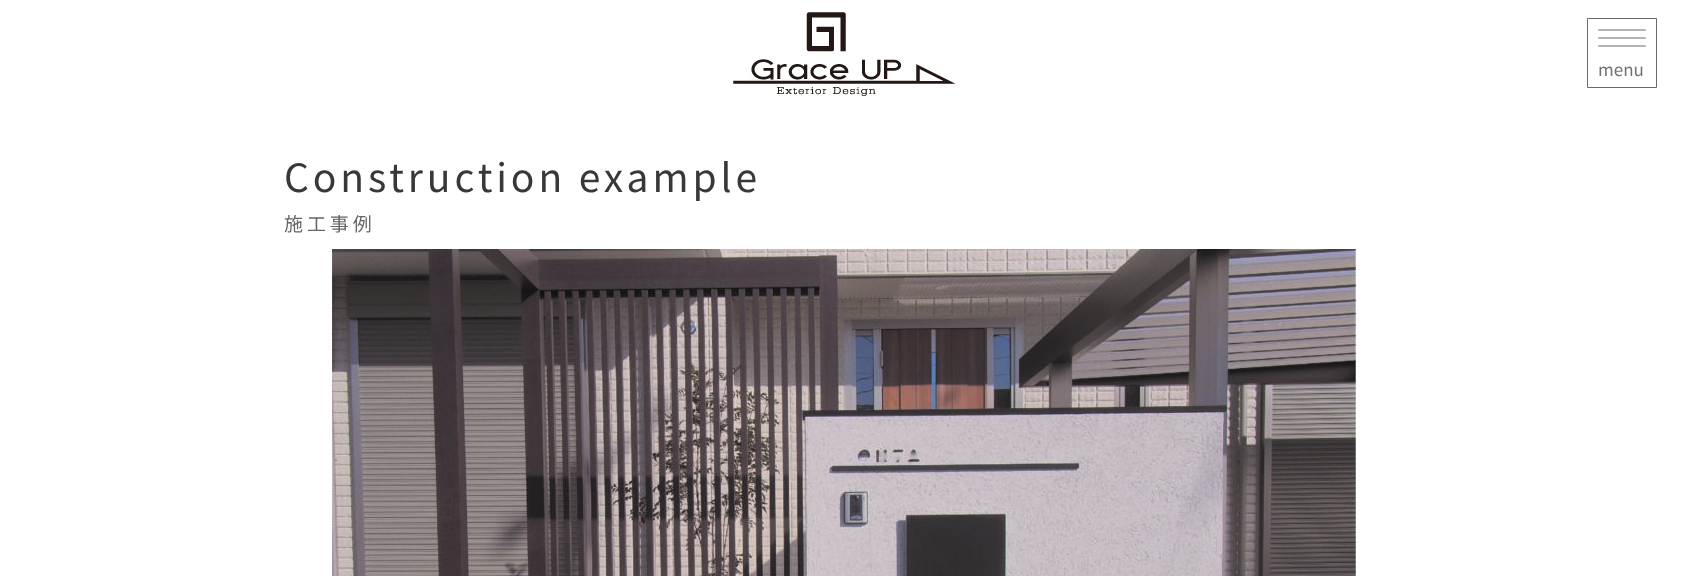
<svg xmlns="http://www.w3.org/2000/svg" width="1687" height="576">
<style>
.a{font:17px Noto Sans JP;fill:#717171}
.b{font:39px Noto Sans JP;letter-spacing:3.9px;fill:#383838}
.c{font:19px Noto Sans JP;letter-spacing:3.9px;fill:#666}
</style>
<rect width="100%" height="100%" fill="#fff"/>
<image href="1.png" x="733" y="12" width="222" height="84"/>
<path fill="none" stroke="#6a6a6a" d="M1587.5 18.5h69v69H1587.5z"/>
<rect fill="#b5b3b3" x="1598" y="29" width="48" height="2" rx="1"/>
<rect fill="#b5b3b3" x="1598" y="37" width="48" height="2" rx="1"/>
<rect fill="#b5b3b3" x="1598" y="45" width="48" height="2" rx="1"/>
<image href="2.png" x="332" y="249" width="1024" height="327"/>
<text class="a" x="1598" y="76">menu</text>
<text class="b" x="284" y="192">Construction example</text>
<text class="c" x="284" y="231">施工事例</text>
</svg>
